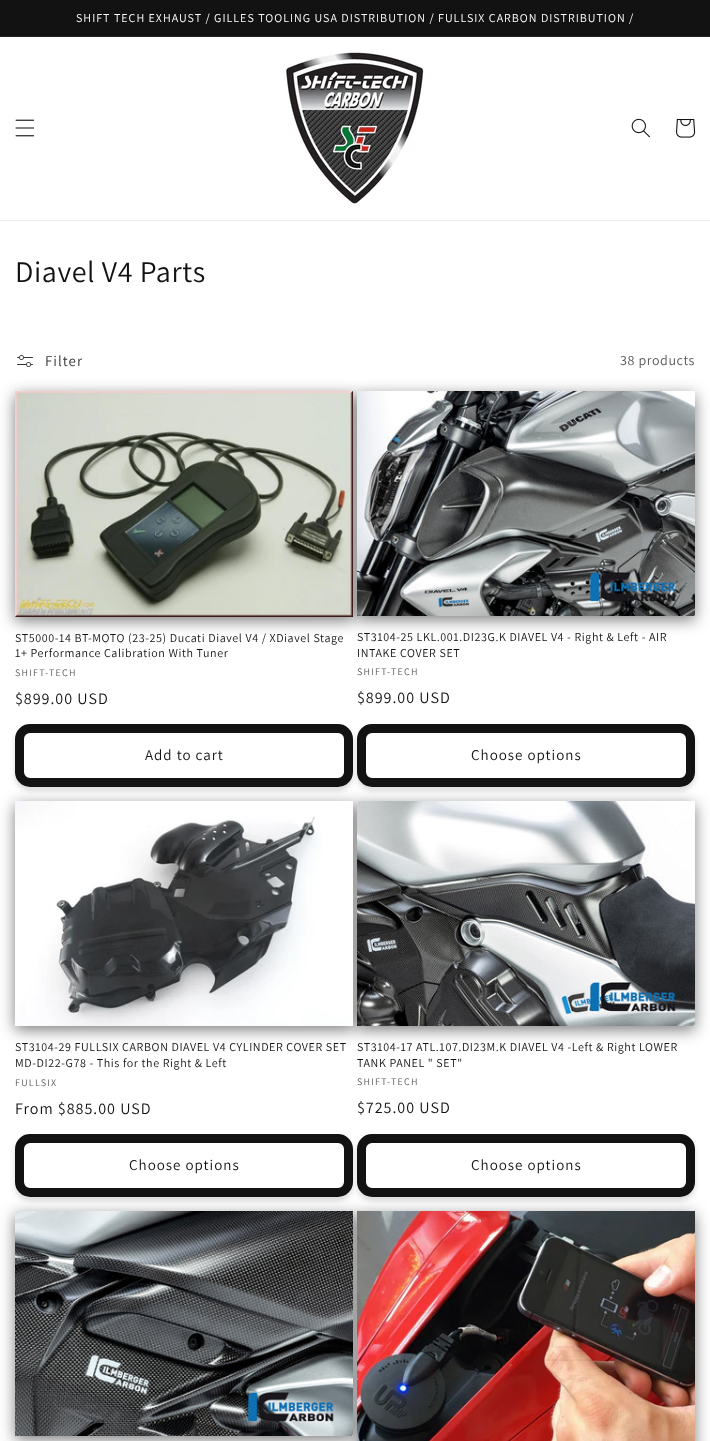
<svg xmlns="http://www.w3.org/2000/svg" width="710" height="1441">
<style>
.a{font:12px Assistant;letter-spacing:1px;fill:#fff}
.b{font:30px Assistant;letter-spacing:0.6px;fill:#121212}
.c{font:15px Assistant;letter-spacing:1px;fill:#363636}
.d{font:14px Assistant;letter-spacing:0.6px;fill:#595959}
.e{font:12px Assistant;letter-spacing:0.6px;fill:#121212}
.f{font:10px Assistant;letter-spacing:1.25px;fill:#595959}
.g{font:16px Assistant;letter-spacing:1px;fill:#121212}
.h{font:15px Assistant;letter-spacing:1px;fill:#121212}
</style>
<rect width="100%" height="100%" fill="#fff"/>
<path fill="#121212" d="M0 0h710v36H0z"/>
<path fill="#252525" d="M0 36h710v1H0z"/>
<path fill="#ececec" d="M0 220h710v1H0z"/>
<image href="1.png" x="15" y="119" width="20" height="18"/>
<image href="2.png" x="284" y="50" width="140" height="156"/>
<image href="3.png" x="631" y="118" width="19" height="20"/>
<image href="4.png" x="676" y="119" width="20" height="19"/>
<image href="5.png" x="17" y="355" width="16" height="12"/>
<path fill="#1212128c" filter="blur(7.5px)" d="M15 395h338v226H15z"/>
<path fill="#1212128c" filter="blur(7.5px)" d="M357 395h338v225H357z"/>
<image href="6.png" x="15" y="391" width="338" height="226"/>
<rect fill="#12121226" filter="blur(2.5px)" x="15" y="728" width="338" height="63" rx="15"/>
<path fill="#1212128c" filter="blur(7.5px)" d="M15 805h338v225H15z"/>
<path fill="#1212128c" filter="blur(7.5px)" d="M357 805h338v225H357z"/>
<rect fill="#fff" x="15" y="724" width="338" height="63" rx="15"/>
<rect fill="none" stroke="#fff" stroke-width="9" x="19.5" y="728.5" width="329" height="54" rx="10.5"/>
<rect fill="none" stroke="#121212" stroke-width="9" x="19.5" y="728.5" width="329" height="54" rx="10.5"/>
<image href="7.png" x="357" y="391" width="338" height="225"/>
<rect fill="#12121226" filter="blur(2.5px)" x="357" y="728" width="338" height="63" rx="15"/>
<rect fill="#fff" x="357" y="724" width="338" height="63" rx="15"/>
<rect fill="none" stroke="#fff" stroke-width="9" x="361.5" y="728.5" width="329" height="54" rx="10.5"/>
<rect fill="none" stroke="#121212" stroke-width="9" x="361.5" y="728.5" width="329" height="54" rx="10.5"/>
<image href="8.png" x="15" y="801" width="338" height="225"/>
<rect fill="#12121226" filter="blur(2.5px)" x="15" y="1138" width="338" height="63" rx="15"/>
<path fill="#1212128c" filter="blur(7.5px)" d="M15 1215h338v225H15z"/>
<path fill="#1212128c" filter="blur(7.5px)" d="M357 1215h338v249H357z"/>
<rect fill="#fff" x="15" y="1134" width="338" height="63" rx="15"/>
<rect fill="none" stroke="#fff" stroke-width="9" x="19.5" y="1138.5" width="329" height="54" rx="10.5"/>
<rect fill="none" stroke="#121212" stroke-width="9" x="19.5" y="1138.5" width="329" height="54" rx="10.5"/>
<image href="9.png" x="357" y="801" width="338" height="225"/>
<rect fill="#12121226" filter="blur(2.5px)" x="357" y="1138" width="338" height="63" rx="15"/>
<rect fill="#fff" x="357" y="1134" width="338" height="63" rx="15"/>
<rect fill="none" stroke="#fff" stroke-width="9" x="361.5" y="1138.5" width="329" height="54" rx="10.5"/>
<rect fill="none" stroke="#121212" stroke-width="9" x="361.5" y="1138.5" width="329" height="54" rx="10.5"/>
<image href="10.png" x="15" y="1211" width="338" height="225"/>
<image href="11.png" x="357" y="1211" width="338" height="230"/>
<text class="a" x="76" y="22">SHIFT TECH EXHAUST / GILLES TOOLING USA DISTRIBUTION / FULLSIX CARBON DISTRIBUTION /</text>
<text class="b" x="15" y="282">Diavel V4 Parts</text>
<text class="c" x="45" y="366">Filter</text>
<text class="d" x="620" y="365">38 products</text>
<text class="e" x="15" y="642">ST5000-14 BT-MOTO (23-25) Ducati Diavel V4 / XDiavel Stage</text>
<text class="e" x="15" y="657">1+ Performance Calibration With Tuner</text>
<text class="f" x="15" y="676">SHIFT-TECH</text>
<text class="g" x="15" y="704">$899.00 USD</text>
<text class="h" x="145" y="760">Add to cart</text>
<text class="e" x="357" y="641">ST3104-25 LKL.001.DI23G.K DIAVEL V4 - Right &amp; Left - AIR</text>
<text class="e" x="357" y="657">INTAKE COVER SET</text>
<text class="f" x="357" y="675">SHIFT-TECH</text>
<text class="g" x="357" y="703">$899.00 USD</text>
<text class="h" x="471" y="760">Choose options</text>
<text class="e" x="15" y="1051">ST3104-29 FULLSIX CARBON DIAVEL V4 CYLINDER COVER SET</text>
<text class="e" x="15" y="1067">MD-DI22-G78 - This for the Right &amp; Left</text>
<text class="f" x="15" y="1086">FULLSIX</text>
<text class="g" x="15" y="1114">From $885.00 USD</text>
<text class="h" x="129" y="1170">Choose options</text>
<text class="e" x="357" y="1051">ST3104-17 ATL.107.DI23M.K DIAVEL V4 -Left &amp; Right LOWER</text>
<text class="e" x="357" y="1067">TANK PANEL " SET"</text>
<text class="f" x="357" y="1085">SHIFT-TECH</text>
<text class="g" x="357" y="1113">$725.00 USD</text>
<text class="h" x="471" y="1170">Choose options</text>
</svg>
